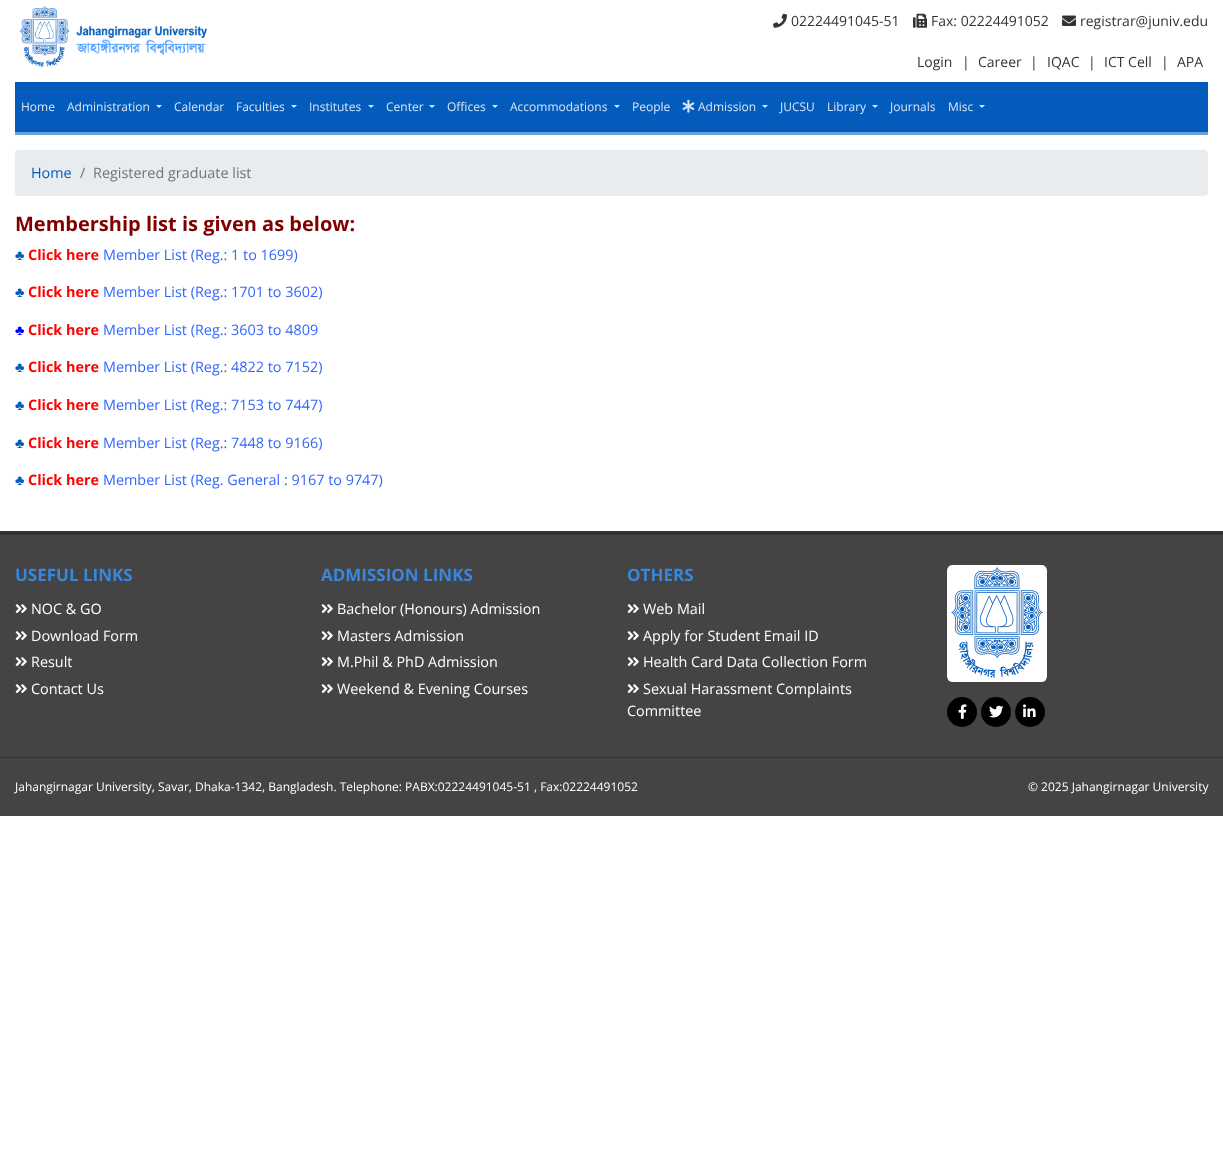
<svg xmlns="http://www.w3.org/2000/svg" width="1223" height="1159">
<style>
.a{font:14px Open Sans;fill:#333}
.b{font:12px Open Sans;fill:#d8e6f6}
.c{font:14.4px Open Sans;fill:#025bbc}
.d{font:14.4px Open Sans;fill:#6c757d}
.e{font:bold 20px Open Sans;fill:#800000}
.f{font:14.4px Liberation Serif;fill:#025bbc}
.g{font:bold 14.4px Open Sans;fill:#f00}
.h{font:14.4px Open Sans;fill:#36f}
.i{font:14.4px Liberation Serif;fill:#00f}
.j{font:bold 17px Open Sans;fill:#3886dd}
.k{font:14.4px Open Sans;fill:#fff}
.l{font:12px Open Sans;fill:#fff}
</style>
<rect width="100%" height="100%" fill="#fff"/>
<image href="1.png" x="19" y="6" width="188" height="61"/>
<image href="2.png" x="773" y="13" width="14" height="15"/>
<image href="3.png" x="913" y="13" width="14" height="15"/>
<image href="4.png" x="1062" y="15" width="14" height="11"/>
<path fill="#035bbc" d="M15 82h1193v50H15z"/>
<path fill="#69a1de" d="M15 132h1193v3H15z"/>
<path fill="#d8e6f6" d="M156 105h6l-3 3z"/>
<path fill="#d8e6f6" d="M291 105h6l-3 3z"/>
<path fill="#d8e6f6" d="M368 105h6l-3 3z"/>
<path fill="#d8e6f6" d="M429 105h6l-3 3z"/>
<path fill="#d8e6f6" d="M492 105h6l-3 3z"/>
<path fill="#d8e6f6" d="M614 105h6l-3 3z"/>
<image href="5.png" x="682" y="99" width="13" height="14"/>
<path fill="#d8e6f6" d="M762 105h6l-3 3z"/>
<path fill="#d8e6f6" d="M872 105h6l-3 3z"/>
<path fill="#d8e6f6" d="M979 105h6l-3 3z"/>
<rect fill="#e9ecef" x="15" y="150" width="1193" height="46" rx="4"/>
<path fill="#333" d="M0 531h1223v4H0z"/>
<path fill="#444" d="M0 535h1223v281H0z"/>
<path fill="#333" d="M0 757h1223v1H0z"/>
<image href="6.png" x="15" y="604" width="12" height="10"/>
<image href="6.png" x="15" y="631" width="12" height="10"/>
<image href="6.png" x="15" y="657" width="12" height="10"/>
<image href="6.png" x="15" y="684" width="12" height="10"/>
<image href="6.png" x="321" y="604" width="12" height="10"/>
<image href="6.png" x="321" y="631" width="12" height="10"/>
<image href="6.png" x="321" y="657" width="12" height="10"/>
<image href="6.png" x="321" y="684" width="12" height="10"/>
<image href="6.png" x="627" y="604" width="12" height="10"/>
<image href="6.png" x="627" y="631" width="12" height="10"/>
<image href="6.png" x="627" y="657" width="12" height="10"/>
<image href="6.png" x="627" y="684" width="12" height="10"/>
<image href="7.png" x="947" y="565" width="100" height="117"/>
<circle fill="#000" cx="962" cy="712" r="15"/>
<image href="8.png" x="958" y="704" width="9" height="15"/>
<circle fill="#000" cx="996" cy="712" r="15"/>
<image href="9.png" x="989" y="705" width="15" height="13"/>
<circle fill="#000" cx="1030" cy="712" r="15"/>
<image href="10.png" x="1023" y="704" width="13" height="13"/>
<text class="a" x="791" y="26">02224491045-51</text>
<text class="a" x="931" y="26">Fax: 02224491052</text>
<text class="a" x="1080" y="26">registrar@juniv.edu</text>
<text class="a" x="917" y="67">Login</text>
<text class="a" x="962" y="67">|</text>
<text class="a" x="978" y="67">Career</text>
<text class="a" x="1030" y="67">|</text>
<text class="a" x="1047" y="67">IQAC</text>
<text class="a" x="1088" y="67">|</text>
<text class="a" x="1104" y="67">ICT Cell</text>
<text class="a" x="1161" y="67">|</text>
<text class="a" x="1177" y="67">APA</text>
<text class="b" x="21" y="111">Home</text>
<text class="b" x="67" y="111">Administration</text>
<text class="b" x="174" y="111">Calendar</text>
<text class="b" x="236" y="111">Faculties</text>
<text class="b" x="309" y="111">Institutes</text>
<text class="b" x="386" y="111">Center</text>
<text class="b" x="447" y="111">Offices</text>
<text class="b" x="510" y="111">Accommodations</text>
<text class="b" x="632" y="111">People</text>
<text class="b" x="698" y="111">Admission</text>
<text class="b" x="780" y="111">JUCSU</text>
<text class="b" x="827" y="111">Library</text>
<text class="b" x="890" y="111">Journals</text>
<text class="b" x="948" y="111">Misc</text>
<text class="c" x="31" y="178">Home</text>
<text class="d" x="80" y="178">/</text>
<text class="d" x="93" y="178">Registered graduate list</text>
<text class="e" x="15" y="231">Membership list is given as below:</text>
<text class="f" x="15" y="260">♣</text>
<text class="g" x="28" y="260">Click here</text>
<text class="h" x="103" y="260">Member List (Reg.: 1 to 1699)</text>
<text class="f" x="15" y="297">♣</text>
<text class="g" x="28" y="297">Click here</text>
<text class="h" x="103" y="297">Member List (Reg.: 1701 to 3602)</text>
<text class="i" x="15" y="335">♣</text>
<text class="g" x="28" y="335">Click here</text>
<text class="h" x="103" y="335">Member List (Reg.: 3603 to 4809</text>
<text class="f" x="15" y="372">♣</text>
<text class="g" x="28" y="372">Click here</text>
<text class="h" x="103" y="372">Member List (Reg.: 4822 to 7152)</text>
<text class="f" x="15" y="410">♣</text>
<text class="g" x="28" y="410">Click here</text>
<text class="h" x="103" y="410">Member List (Reg.: 7153 to 7447)</text>
<text class="f" x="15" y="448">♣</text>
<text class="g" x="28" y="448">Click here</text>
<text class="h" x="103" y="448">Member List (Reg.: 7448 to 9166)</text>
<text class="f" x="15" y="485">♣</text>
<text class="g" x="28" y="485">Click here</text>
<text class="h" x="103" y="485">Member List (Reg. General : 9167 to 9747)</text>
<text class="j" x="15" y="581">USEFUL LINKS</text>
<text class="k" x="31" y="614">NOC &amp; GO</text>
<text class="k" x="31" y="641">Download Form</text>
<text class="k" x="31" y="667">Result</text>
<text class="k" x="31" y="694">Contact Us</text>
<text class="j" x="321" y="581">ADMISSION LINKS</text>
<text class="k" x="337" y="614">Bachelor (Honours) Admission</text>
<text class="k" x="337" y="641">Masters Admission</text>
<text class="k" x="337" y="667">M.Phil &amp; PhD Admission</text>
<text class="k" x="337" y="694">Weekend &amp; Evening Courses</text>
<text class="j" x="627" y="581">OTHERS</text>
<text class="k" x="643" y="614">Web Mail</text>
<text class="k" x="643" y="641">Apply for Student Email ID</text>
<text class="k" x="643" y="667">Health Card Data Collection Form</text>
<text class="k" x="643" y="694">Sexual Harassment Complaints</text>
<text class="k" x="627" y="716">Committee</text>
<text class="l" x="15" y="791">Jahangirnagar University, Savar, Dhaka-1342, Bangladesh. Telephone: PABX:02224491045-51 , Fax:02224491052</text>
<text class="l" x="1028" y="791">© 2025 Jahangirnagar University</text>
</svg>
